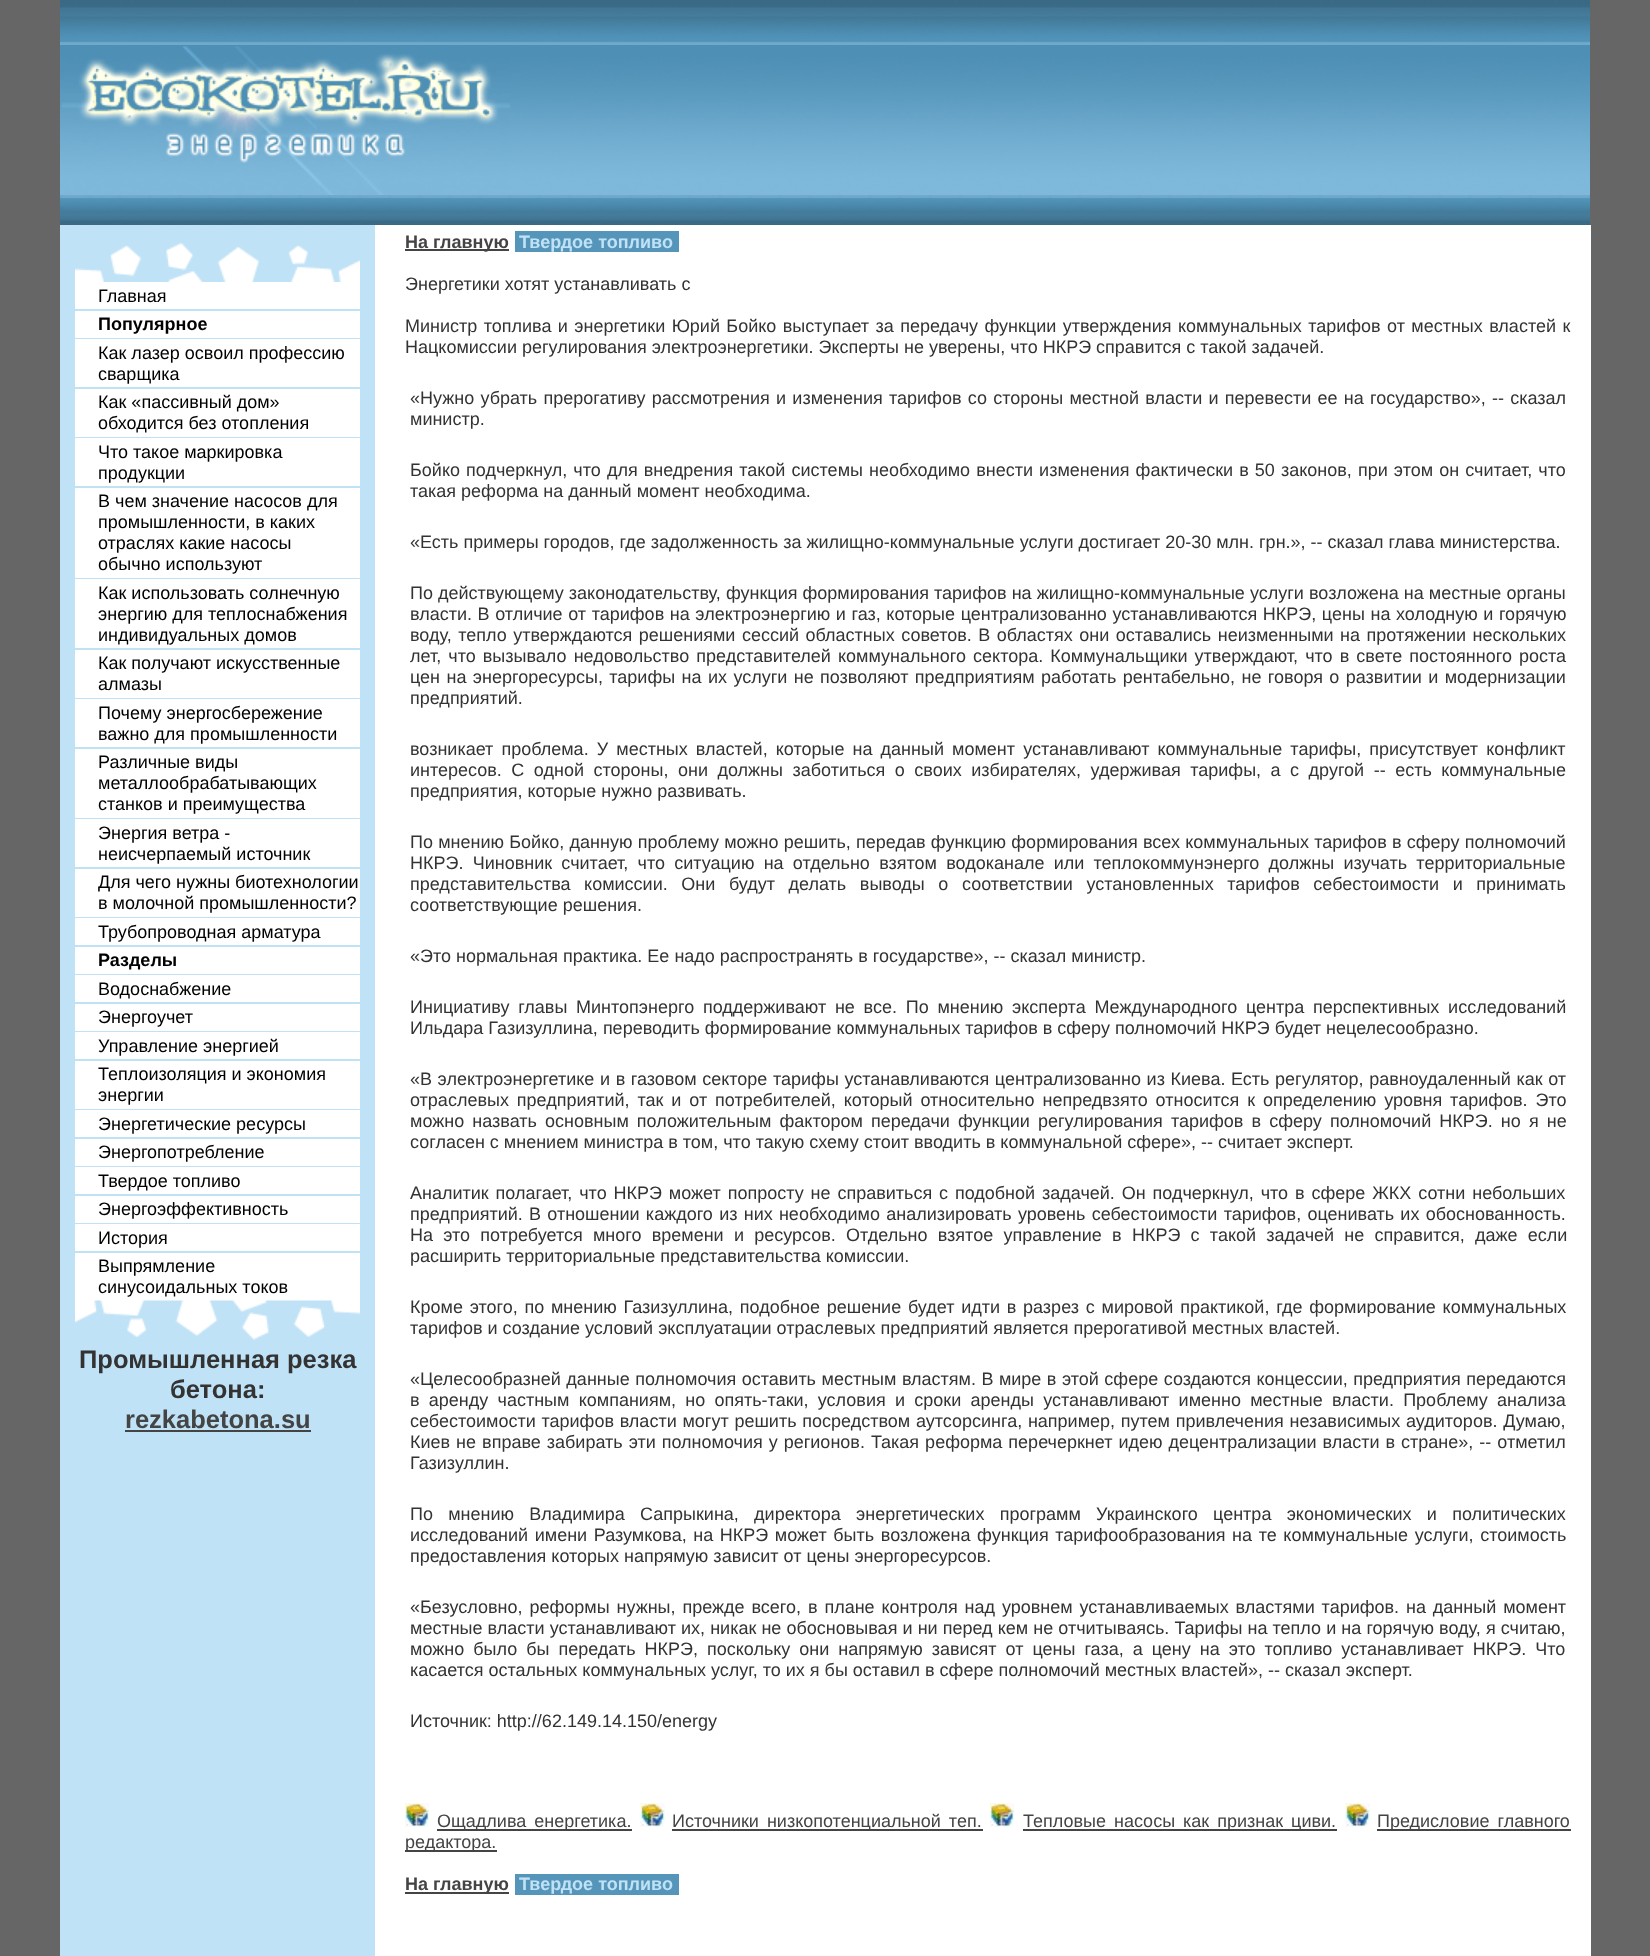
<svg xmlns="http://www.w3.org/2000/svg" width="1650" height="1956">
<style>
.a{font:18px Liberation Sans;fill:#000}
.b{font:bold 18px Liberation Sans;fill:#000}
.c{font:bold 25.5px Liberation Sans;fill:#333}
.d{font:bold 25.5px Liberation Sans;fill:#444}
.e{font:bold 18px Liberation Sans;fill:#444}
.f{font:bold 18px Liberation Sans;fill:#c0e2f6}
.g{font:18px Liberation Sans;fill:#333}
.h{font:18px Liberation Sans;fill:#444}
</style>
<rect width="100%" height="100%" fill="#666"/>
<image href="1.png" x="60" y="0" width="1530" height="45"/>
<image href="2.png" x="60" y="45" width="1530" height="150"/>
<image href="3.png" x="61" y="46" width="449" height="149"/>
<image href="4.png" x="60" y="195" width="1530" height="30"/>
<path fill="#c0e2f6" d="M60 225h315v1731H60z"/>
<image href="5.png" x="75" y="243" width="285" height="39"/>
<path fill="#fff" d="M75 282h285v27H75z"/>
<path fill="#fff" d="M75 311h285v27H75z"/>
<path fill="#fff" d="M75 339h285v48H75z"/>
<path fill="#fff" d="M75 389h285v48H75z"/>
<path fill="#fff" d="M75 438h285v48H75z"/>
<path fill="#fff" d="M75 488h285v90H75z"/>
<path fill="#fff" d="M75 579h285v69H75z"/>
<path fill="#fff" d="M75 650h285v48H75z"/>
<path fill="#fff" d="M75 699h285v48H75z"/>
<path fill="#fff" d="M75 749h285v69H75z"/>
<path fill="#fff" d="M75 819h285v48H75z"/>
<path fill="#fff" d="M75 869h285v48H75z"/>
<path fill="#fff" d="M75 918h285v27H75z"/>
<path fill="#fff" d="M75 947h285v27H75z"/>
<path fill="#fff" d="M75 975h285v27H75z"/>
<path fill="#fff" d="M75 1004h285v27H75z"/>
<path fill="#fff" d="M75 1032h285v27H75z"/>
<path fill="#fff" d="M75 1061h285v48H75z"/>
<path fill="#fff" d="M75 1110h285v27H75z"/>
<path fill="#fff" d="M75 1139h285v27H75z"/>
<path fill="#fff" d="M75 1167h285v27H75z"/>
<path fill="#fff" d="M75 1196h285v27H75z"/>
<path fill="#fff" d="M75 1224h285v27H75z"/>
<path fill="#fff" d="M75 1253h285v48H75z"/>
<image href="6.png" x="75" y="1300" width="285" height="40"/>
<path fill="#444" d="M125 1430h186v2H125z"/>
<path fill="#fff" d="M375 225h1216v1731H375z"/>
<path fill="#444" d="M405 249h104v2H405z"/>
<path fill="#5595ba" d="M515 231h164v21H515z"/>
<image href="7.png" x="405" y="1803" width="24" height="24"/>
<path fill="#444" d="M437 1829h195v2H437z"/>
<image href="8.png" x="640" y="1803" width="25" height="24"/>
<path fill="#444" d="M672 1829h311v2H672z"/>
<image href="9.png" x="990" y="1803" width="24" height="24"/>
<path fill="#444" d="M1023 1829h314v2H1023z"/>
<image href="8.png" x="1345" y="1803" width="25" height="24"/>
<path fill="#444" d="M1377 1829h194v2H1377z"/>
<path fill="#444" d="M405 1850h92v2H405z"/>
<path fill="#444" d="M405 1892h104v2H405z"/>
<path fill="#5595ba" d="M515 1874h164v21H515z"/>
<text class="a" x="98" y="302">Главная</text>
<text class="b" x="98" y="330">Популярное</text>
<text class="a" x="98" y="359">Как лазер освоил профессию</text>
<text class="a" x="98" y="380">сварщика</text>
<text class="a" x="98" y="408">Как «пассивный дом»</text>
<text class="a" x="98" y="429">обходится без отопления</text>
<text class="a" x="98" y="458">Что такое маркировка</text>
<text class="a" x="98" y="479">продукции</text>
<text class="a" x="98" y="507">В чем значение насосов для</text>
<text class="a" x="98" y="528">промышленности, в каких</text>
<text class="a" x="98" y="549">отраслях какие насосы</text>
<text class="a" x="98" y="570">обычно используют</text>
<text class="a" x="98" y="599">Как использовать солнечную</text>
<text class="a" x="98" y="620">энергию для теплоснабжения</text>
<text class="a" x="98" y="641">индивидуальных домов</text>
<text class="a" x="98" y="669">Как получают искусственные</text>
<text class="a" x="98" y="690">алмазы</text>
<text class="a" x="98" y="719">Почему энергосбережение</text>
<text class="a" x="98" y="740">важно для промышленности</text>
<text class="a" x="98" y="768">Различные виды</text>
<text class="a" x="98" y="789">металлообрабатывающих</text>
<text class="a" x="98" y="810">станков и преимущества</text>
<text class="a" x="98" y="839">Энергия ветра -</text>
<text class="a" x="98" y="860">неисчерпаемый источник</text>
<text class="a" x="98" y="888">Для чего нужны биотехнологии</text>
<text class="a" x="98" y="909">в молочной промышленности?</text>
<text class="a" x="98" y="938">Трубопроводная арматура</text>
<text class="b" x="98" y="966">Разделы</text>
<text class="a" x="98" y="995">Водоснабжение</text>
<text class="a" x="98" y="1023">Энергоучет</text>
<text class="a" x="98" y="1052">Управление энергией</text>
<text class="a" x="98" y="1080">Теплоизоляция и экономия</text>
<text class="a" x="98" y="1101">энергии</text>
<text class="a" x="98" y="1130">Энергетические ресурсы</text>
<text class="a" x="98" y="1158">Энергопотребление</text>
<text class="a" x="98" y="1187">Твердое топливо</text>
<text class="a" x="98" y="1215">Энергоэффективность</text>
<text class="a" x="98" y="1244">История</text>
<text class="a" x="98" y="1272">Выпрямление</text>
<text class="a" x="98" y="1293">синусоидальных токов</text>
<text class="c" x="79" y="1368">Промышленная резка</text>
<text class="c" x="170" y="1398">бетона:</text>
<text class="d" x="125" y="1428">rezkabetona.su</text>
<text class="e" x="405" y="248">На главную</text>
<text class="f" x="519" y="248">Твердое топливо</text>
<text class="g" x="405" y="290">Энергетики хотят устанавливать с</text>
<text class="g" x="405" y="332" word-spacing="1.4">Министр топлива и энергетики Юрий Бойко выступает за передачу функции утверждения коммунальных тарифов от местных властей к</text>
<text class="g" x="405" y="353">Нацкомиссии регулирования электроэнергетики. Эксперты не уверены, что НКРЭ справится с такой задачей.</text>
<text class="g" x="410" y="404" word-spacing="1.25">«Нужно убрать прерогативу рассмотрения и изменения тарифов со стороны местной власти и перевести ее на государство», -- сказал</text>
<text class="g" x="410" y="425">министр.</text>
<text class="g" x="410" y="476" word-spacing="1.1">Бойко подчеркнул, что для внедрения такой системы необходимо внести изменения фактически в 50 законов, при этом он считает, что</text>
<text class="g" x="410" y="497">такая реформа на данный момент необходима.</text>
<text class="g" x="410" y="548">«Есть примеры городов, где задолженность за жилищно-коммунальные услуги достигает 20-30 млн. грн.», -- сказал глава министерства.</text>
<text class="g" x="410" y="599" word-spacing="0.1">По действующему законодательству, функция формирования тарифов на жилищно-коммунальные услуги возложена на местные органы</text>
<text class="g" x="410" y="620" word-spacing="0.6">власти. В отличие от тарифов на электроэнергию и газ, которые централизованно устанавливаются НКРЭ, цены на холодную и горячую</text>
<text class="g" x="410" y="641" word-spacing="1.5">воду, тепло утверждаются решениями сессий областных советов. В областях они оставались неизменными на протяжении нескольких</text>
<text class="g" x="410" y="662" word-spacing="2.1">лет, что вызывало недовольство представителей коммунального сектора. Коммунальщики утверждают, что в свете постоянного роста</text>
<text class="g" x="410" y="683" word-spacing="1.4">цен на энергоресурсы, тарифы на их услуги не позволяют предприятиям работать рентабельно, не говоря о развитии и модернизации</text>
<text class="g" x="410" y="704">предприятий.</text>
<text class="g" x="410" y="755" word-spacing="3.1">возникает проблема. У местных властей, которые на данный момент устанавливают коммунальные тарифы, присутствует конфликт</text>
<text class="g" x="410" y="776" word-spacing="4.5">интересов. С одной стороны, они должны заботиться о своих избирателях, удерживая тарифы, а с другой -- есть коммунальные</text>
<text class="g" x="410" y="797">предприятия, которые нужно развивать.</text>
<text class="g" x="410" y="848" word-spacing="0.25">По мнению Бойко, данную проблему можно решить, передав функцию формирования всех коммунальных тарифов в сферу полномочий</text>
<text class="g" x="410" y="869" word-spacing="4.25">НКРЭ. Чиновник считает, что ситуацию на отдельно взятом водоканале или теплокоммунэнерго должны изучать территориальные</text>
<text class="g" x="410" y="890" word-spacing="8.6">представительства комиссии. Они будут делать выводы о соответствии установленных тарифов себестоимости и принимать</text>
<text class="g" x="410" y="911">соответствующие решения.</text>
<text class="g" x="410" y="962">«Это нормальная практика. Ее надо распространять в государстве», -- сказал министр.</text>
<text class="g" x="410" y="1013" word-spacing="3.75">Инициативу главы Минтопэнерго поддерживают не все. По мнению эксперта Международного центра перспективных исследований</text>
<text class="g" x="410" y="1034">Ильдара Газизуллина, переводить формирование коммунальных тарифов в сферу полномочий НКРЭ будет нецелесообразно.</text>
<text class="g" x="410" y="1085" word-spacing="0.6">«В электроэнергетике и в газовом секторе тарифы устанавливаются централизованно из Киева. Есть регулятор, равноудаленный как от</text>
<text class="g" x="410" y="1106" word-spacing="2.9">отраслевых предприятий, так и от потребителей, который относительно непредвзято относится к определению уровня тарифов. Это</text>
<text class="g" x="410" y="1127" word-spacing="3.1">можно назвать основным положительным фактором передачи функции регулирования тарифов в сферу полномочий НКРЭ. но я не</text>
<text class="g" x="410" y="1148">согласен с мнением министра в том, что такую схему стоит вводить в коммунальной сфере», -- считает эксперт.</text>
<text class="g" x="410" y="1199" word-spacing="1.9">Аналитик полагает, что НКРЭ может попросту не справиться с подобной задачей. Он подчеркнул, что в сфере ЖКХ сотни небольших</text>
<text class="g" x="410" y="1220" word-spacing="1.25">предприятий. В отношении каждого из них необходимо анализировать уровень себестоимости тарифов, оценивать их обоснованность.</text>
<text class="g" x="410" y="1241" word-spacing="5.25">На это потребуется много времени и ресурсов. Отдельно взятое управление в НКРЭ с такой задачей не справится, даже если</text>
<text class="g" x="410" y="1262">расширить территориальные представительства комиссии.</text>
<text class="g" x="410" y="1313" word-spacing="1.75">Кроме этого, по мнению Газизуллина, подобное решение будет идти в разрез с мировой практикой, где формирование коммунальных</text>
<text class="g" x="410" y="1334">тарифов и создание условий эксплуатации отраслевых предприятий является прерогативой местных властей.</text>
<text class="g" x="410" y="1385" word-spacing="0.5">«Целесообразней данные полномочия оставить местным властям. В мире в этой сфере создаются концессии, предприятия передаются</text>
<text class="g" x="410" y="1406" word-spacing="4.25">в аренду частным компаниям, но опять-таки, условия и сроки аренды устанавливают именно местные власти. Проблему анализа</text>
<text class="g" x="410" y="1427" word-spacing="0.75">себестоимости тарифов власти могут решить посредством аутсорсинга, например, путем привлечения независимых аудиторов. Думаю,</text>
<text class="g" x="410" y="1448" word-spacing="1">Киев не вправе забирать эти полномочия у регионов. Такая реформа перечеркнет идею децентрализации власти в стране», -- отметил</text>
<text class="g" x="410" y="1469">Газизуллин.</text>
<text class="g" x="410" y="1520" word-spacing="10.25">По мнению Владимира Сапрыкина, директора энергетических программ Украинского центра экономических и политических</text>
<text class="g" x="410" y="1541" word-spacing="1.6">исследований имени Разумкова, на НКРЭ может быть возложена функция тарифообразования на те коммунальные услуги, стоимость</text>
<text class="g" x="410" y="1562">предоставления которых напрямую зависит от цены энергоресурсов.</text>
<text class="g" x="410" y="1613" word-spacing="1.9">«Безусловно, реформы нужны, прежде всего, в плане контроля над уровнем устанавливаемых властями тарифов. на данный момент</text>
<text class="g" x="410" y="1634" word-spacing="0.1">местные власти устанавливают их, никак не обосновывая и ни перед кем не отчитываясь. Тарифы на тепло и на горячую воду, я считаю,</text>
<text class="g" x="410" y="1655" word-spacing="4">можно было бы передать НКРЭ, поскольку они напрямую зависят от цены газа, а цену на это топливо устанавливает НКРЭ. Что</text>
<text class="g" x="410" y="1676">касается остальных коммунальных услуг, то их я бы оставил в сфере полномочий местных властей», -- сказал эксперт.</text>
<text class="g" x="410" y="1727">Источник: http://62.149.14.150/energy</text>
<text class="h" x="437" y="1827" word-spacing="3">Ощадлива енергетика.</text>
<text class="h" x="672" y="1827" word-spacing="3">Источники низкопотенциальной теп.</text>
<text class="h" x="1023" y="1827" word-spacing="3">Тепловые насосы как признак циви.</text>
<text class="h" x="1377" y="1827" word-spacing="3">Предисловие главного</text>
<text class="h" x="405" y="1848">редактора.</text>
<text class="e" x="405" y="1890">На главную</text>
<text class="f" x="519" y="1890">Твердое топливо</text>
</svg>
